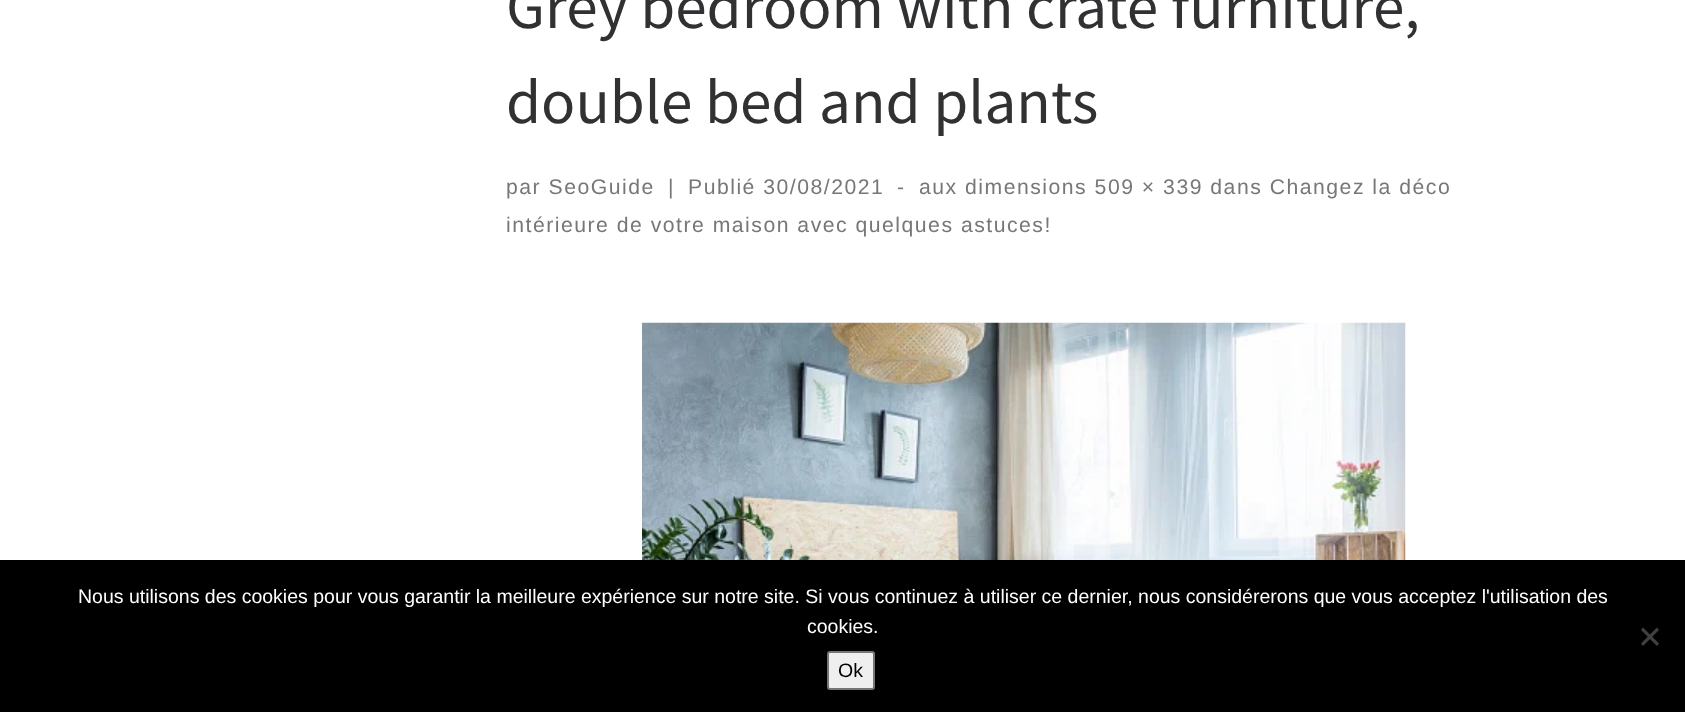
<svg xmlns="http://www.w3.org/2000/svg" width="1685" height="712">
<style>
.a{font:63.25px Source Sans Pro;fill:#303133}
.b{font:21.2px Liberation Sans;letter-spacing:1.5px;fill:#777}
.c{font:19.5px Liberation Sans;fill:#fff}
.d{font:19.5px Liberation Sans;fill:#000}
</style>
<rect width="100%" height="100%" fill="#fff"/>
<image href="1.png" x="642" y="322" width="764" height="238"/>
<path fill="#000" d="M0 560h1685v152H0z"/>
<path fill="#404040" d="M1657 627.5l2 2.5l-16 16l-2-2.5z"/>
<path fill="#404040" d="M1641 630l2-2.5l16 16l-2 2.5z"/>
<rect fill="#efefef" stroke="#767676" stroke-width="2" x="828" y="652" width="46" height="37" rx="2"/>
<text class="a" x="506" y="28">Grey bedroom with crate furniture,</text>
<text class="a" x="506" y="123">double bed and plants</text>
<text class="b" x="506" y="194">par SeoGuide</text>
<text class="b" x="668" y="194">|</text>
<text class="b" x="688" y="194">Publié 30/08/2021</text>
<text class="b" x="897" y="194">-</text>
<text class="b" x="919" y="194">aux dimensions 509 × 339 dans Changez la déco</text>
<text class="b" x="506" y="232">intérieure de votre maison avec quelques astuces!</text>
<text class="c" x="78" y="603">Nous utilisons des cookies pour vous garantir la meilleure expérience sur notre site. Si vous continuez à utiliser ce dernier, nous considérerons que vous acceptez l'utilisation des</text>
<text class="c" x="807" y="633">cookies.</text>
<text class="d" x="838" y="677">Ok</text>
</svg>
